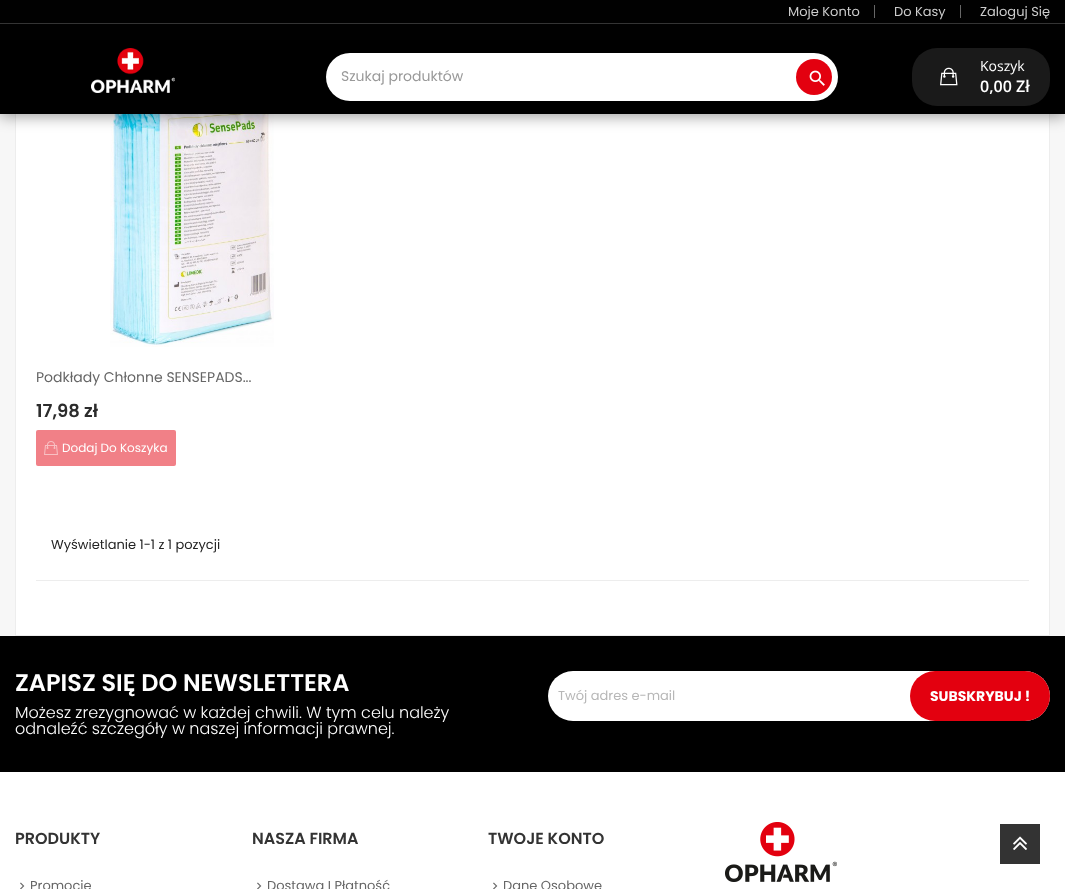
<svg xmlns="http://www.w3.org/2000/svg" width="1065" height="889">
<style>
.a{font:13px Poppins;fill:#ccc}
.b{font:14px Poppins;fill:#999}
.c{font:14px Open Sans;fill:#fff}
.d{font:600 16px Open Sans;fill:#fff}
.e{font:14px Poppins;fill:#666}
.f{font:600 18px Poppins;fill:#2c2c2c}
.g{font:12px Poppins;fill:#fff}
.h{font:13px Poppins;fill:#232323}
.i{font:600 24px Poppins;fill:#fff}
.j{font:300 16px Poppins;fill:#fff}
.k{font:13px Poppins;fill:#b7b7b7}
.l{font:bold 14px Poppins;fill:#fff}
.m{font:600 16px Poppins;fill:#333}
.n{font:13px Poppins;fill:#666}
</style>
<rect width="100%" height="100%" fill="#f7f7f7"/>
<path fill="#fff" d="M16 114h1033v521H16z"/>
<path fill="none" stroke="#ededed" d="M15.5 15.5h1034v620H15.5z"/>
<image href="4.png" x="110" y="114" width="164" height="233"/>
<path fill="#00000066" filter="blur(7.5px)" d="M0 2h1065v114H0z"/>
<path fill="#010101" d="M0 0h1065v40H0z"/>
<path fill="#343434" d="M0 23h1065v1H0z"/>
<path fill="#676767" d="M874 5h1v13H874z"/>
<path fill="#676767" d="M960 5h1v13H960z"/>
<path fill="#000" d="M0 40h1065v74H0z"/>
<image href="1.png" x="91" y="48" width="84" height="45"/>
<rect fill="#fff" x="326" y="53" width="512" height="48" rx="24"/>
<circle fill="#e3000f" cx="814" cy="77" r="18"/>
<image href="2.png" x="809" y="70" width="16" height="16"/>
<rect fill="#1a1a1a" x="912" y="48" width="138" height="58" rx="25"/>
<image href="3.png" x="940" y="67" width="18" height="19"/>
<rect fill="#f18087" x="36" y="430" width="140" height="36" rx="2"/>
<image href="5.png" x="44" y="441" width="14" height="14"/>
<path fill="#ededed" d="M36 580h993v1H36z"/>
<path fill="#fff" d="M0 772h1065v117H0z"/>
<path fill="#000" d="M0 636h1065v136H0z"/>
<rect fill="#fff" x="548" y="671" width="502" height="50" rx="25"/>
<rect fill="#e3000f" x="910" y="671" width="140" height="50" rx="25"/>
<image href="6.png" x="20" y="882" width="5" height="7"/>
<image href="6.png" x="257" y="882" width="5" height="7"/>
<image href="6.png" x="493" y="882" width="5" height="7"/>
<image href="7.png" x="725" y="822" width="112" height="60"/>
<path fill="#333" d="M1000 824h40v40H1000z"/>
<image href="8.png" x="1013" y="836" width="14" height="14"/>
<text class="a" x="788" y="16">Moje Konto</text>
<text class="a" x="894" y="16">Do Kasy</text>
<text class="a" x="980" y="16">Zaloguj Się</text>
<text class="b" x="341" y="81">Szukaj produktów</text>
<text class="c" x="980" y="71">Koszyk</text>
<text class="d" x="980" y="92">0,00 Zł</text>
<text class="e" x="36" y="382">Podkłady Chłonne SENSEPADS...</text>
<text class="f" x="36" y="417">17,98 zł</text>
<text class="g" x="62" y="452">Dodaj Do Koszyka</text>
<text class="h" x="51" y="549">Wyświetlanie 1-1 z 1 pozycji</text>
<text class="i" x="15" y="691">ZAPISZ SIĘ DO NEWSLETTERA</text>
<text class="j" x="15" y="718">Możesz zrezygnować w każdej chwili. W tym celu należy</text>
<text class="j" x="15" y="734">odnaleźć szczegóły w naszej informacji prawnej.</text>
<text class="k" x="558" y="700">Twój adres e-mail</text>
<text class="l" x="930" y="701">SUBSKRYBUJ !</text>
<text class="m" x="15" y="844">PRODUKTY</text>
<text class="n" x="30" y="890">Promocje</text>
<text class="m" x="252" y="844">NASZA FIRMA</text>
<text class="n" x="267" y="890">Dostawa I Płatność</text>
<text class="m" x="488" y="844">TWOJE KONTO</text>
<text class="n" x="503" y="890">Dane Osobowe</text>
</svg>
